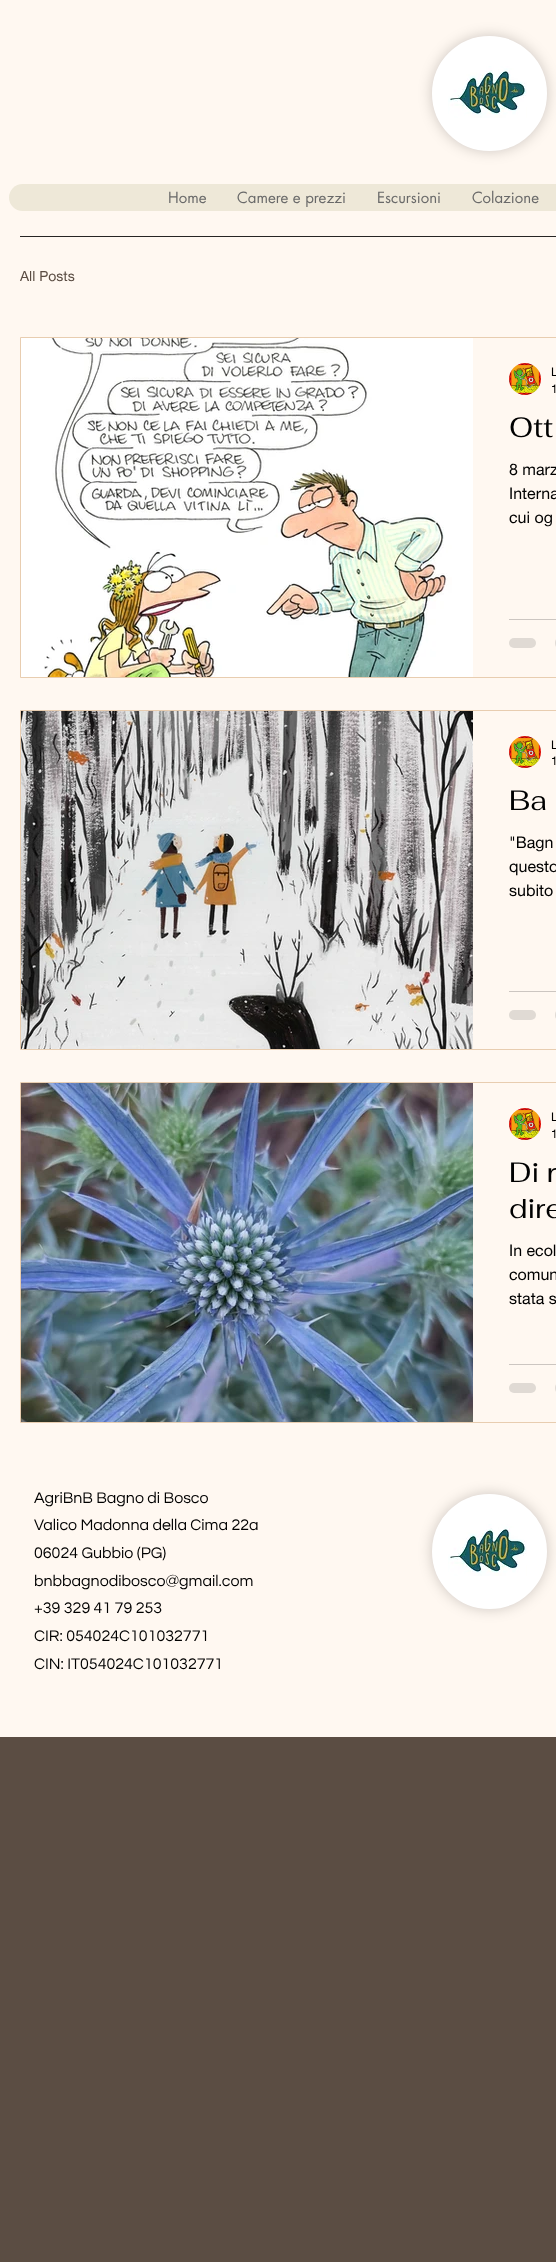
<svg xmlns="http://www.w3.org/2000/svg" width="556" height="2262">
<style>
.a{font:15px futura;fill:#696969}
.b{font:14px helvetica neue;fill:#5b4d43}
.c{font:12px helvetica neue;fill:#000}
.d{font:28px Fahkwang;fill:#000}
.e{font:16px helvetica neue;fill:#000}
.f{font:16px Questrial;fill:#000}
</style>
<rect width="100%" height="100%" fill="#5b4d43"/>
<path fill="#fff8f1" d="M0 0h556v1737H0z"/>
<rect fill="#00000033" filter="blur(7px)" x="432" y="36" width="115" height="115" rx="57.5"/>
<circle fill="#fff" stroke="#fff" stroke-width="6" cx="489.5" cy="93.5" r="54.5"/>
<image href="1.png" x="448" y="66" width="79" height="52"/>
<rect fill="#eee8d8" x="9" y="184" width="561" height="27" rx="13.5"/>
<path fill="#262524" d="M20 236h536v1H20z"/>
<path fill="none" stroke="#e8cdb0" d="M20.5 337.5h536v340H20.5z"/>
<image href="2.png" x="21" y="338" width="452" height="339"/>
<image href="3.png" x="509" y="363" width="32" height="32"/>
<path fill="#ccc6c1" d="M509 619h47v1H509z"/>
<rect fill="#e0dad4" x="509" y="638" width="27" height="10" rx="5"/>
<rect fill="#e0dad4" x="555" y="638" width="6" height="10" rx="5"/>
<path fill="none" stroke="#e8cdb0" d="M20.5 710.5h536v339H20.5z"/>
<image href="4.png" x="21" y="711" width="452" height="338"/>
<image href="3.png" x="509" y="736" width="32" height="32"/>
<path fill="#ccc6c1" d="M509 991h47v1H509z"/>
<rect fill="#e0dad4" x="509" y="1010" width="27" height="10" rx="5"/>
<rect fill="#e0dad4" x="555" y="1010" width="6" height="10" rx="5"/>
<path fill="none" stroke="#e8cdb0" d="M20.5 1082.5h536v340H20.5z"/>
<image href="5.png" x="21" y="1083" width="452" height="339"/>
<image href="3.png" x="509" y="1108" width="32" height="32"/>
<path fill="#ccc6c1" d="M509 1364h47v1H509z"/>
<rect fill="#e0dad4" x="509" y="1383" width="27" height="10" rx="5"/>
<rect fill="#e0dad4" x="555" y="1383" width="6" height="10" rx="5"/>
<rect fill="#00000033" filter="blur(7px)" x="432" y="1494" width="115" height="115" rx="57.5"/>
<circle fill="#fff" stroke="#fff" stroke-width="6" cx="489.5" cy="1551.5" r="54.5"/>
<image href="1.png" x="448" y="1524" width="79" height="52"/>
<text class="a" x="168" y="203">Home</text>
<text class="a" x="237" y="203">Camere e prezzi</text>
<text class="a" x="377" y="203">Escursioni</text>
<text class="a" x="472" y="203">Colazione</text>
<text class="b" x="20" y="281">All Posts</text>
<text class="c" x="551" y="376">L</text>
<text class="c" x="551" y="393">1</text>
<text class="d" x="509" y="437">Ott</text>
<text class="e" x="509" y="475">8 marz</text>
<text class="e" x="509" y="499">Interna</text>
<text class="e" x="509" y="523">cui og</text>
<text class="c" x="551" y="749">L</text>
<text class="c" x="551" y="765">1</text>
<text class="d" x="509" y="810">Ba</text>
<text class="e" x="509" y="848">"Bagn</text>
<text class="e" x="509" y="872">questo</text>
<text class="e" x="509" y="896">subito</text>
<text class="c" x="551" y="1121">L</text>
<text class="c" x="551" y="1138">1</text>
<text class="d" x="509" y="1182">Di r</text>
<text class="d" x="509" y="1218">dire</text>
<text class="e" x="509" y="1256">In ecol</text>
<text class="e" x="509" y="1280">comun</text>
<text class="e" x="509" y="1304">stata s</text>
<text class="f" x="34" y="1503">AgriBnB Bagno di Bosco</text>
<text class="f" x="34" y="1530">Valico Madonna della Cima 22a</text>
<text class="f" x="34" y="1558">06024 Gubbio (PG)</text>
<text class="f" x="34" y="1586">bnbbagnodibosco@gmail.com</text>
<text class="f" x="34" y="1613">+39 329 41 79 253</text>
<text class="f" x="34" y="1641">CIR: 054024C101032771</text>
<text class="f" x="34" y="1669">CIN: IT054024C101032771</text>
</svg>
